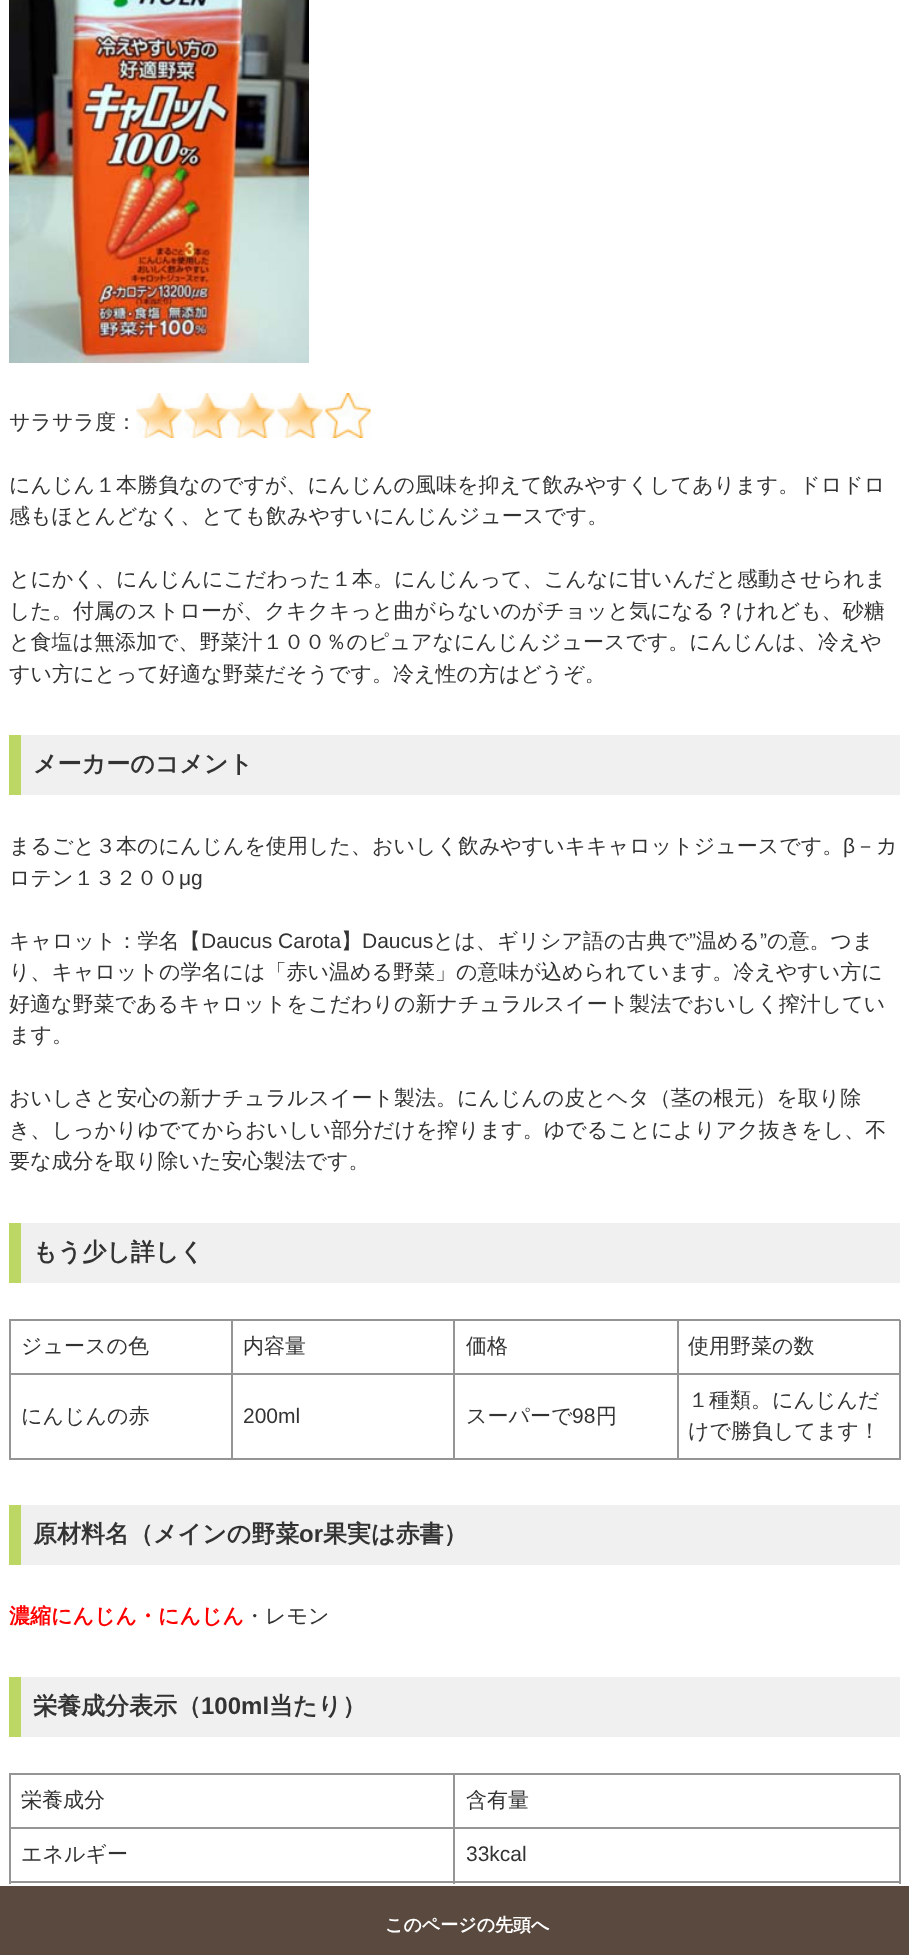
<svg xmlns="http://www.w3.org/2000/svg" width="909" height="1955">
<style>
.a{font:500 21px WenQuanYi Zen Hei;fill:#333}
.b{font:bold 24px WenQuanYi Zen Hei;fill:#333}
.c{font:21px Liberation Sans;fill:#333}
.d{font:bold 24px Liberation Sans;fill:#333}
.e{font:bold 21px WenQuanYi Zen Hei;fill:#f00}
.f{font:bold 18px WenQuanYi Zen Hei;fill:#fff}
</style>
<rect width="100%" height="100%" fill="#fff"/>
<image href="1.png" x="9" y="0" width="300" height="363"/>
<image href="2.png" x="136" y="393" width="235" height="45"/>
<path fill="#eff0ef" d="M21 735h879v60H21z"/>
<path fill="#bcd764" d="M9 735h12v60H9z"/>
<path fill="#eff0ef" d="M21 1223h879v60H21z"/>
<path fill="#bcd764" d="M9 1223h12v60H9z"/>
<path fill="#959595" d="M9 1319h891v2H9z"/>
<path fill="#959595" d="M9 1319h2v141H9z"/>
<path fill="#959595" d="M231 1320h2v54H231z"/>
<path fill="#959595" d="M11 1373h222v2H11z"/>
<path fill="#959595" d="M453 1320h2v54H453z"/>
<path fill="#959595" d="M233 1373h222v2H233z"/>
<path fill="#959595" d="M677 1320h2v54H677z"/>
<path fill="#959595" d="M455 1373h223v2H455z"/>
<path fill="#959595" d="M899 1320h2v54H899z"/>
<path fill="#959595" d="M678 1373h222v2H678z"/>
<path fill="#959595" d="M231 1374h2v86H231z"/>
<path fill="#959595" d="M11 1458h222v2H11z"/>
<path fill="#959595" d="M453 1374h2v86H453z"/>
<path fill="#959595" d="M233 1458h222v2H233z"/>
<path fill="#959595" d="M677 1374h2v86H677z"/>
<path fill="#959595" d="M455 1458h223v2H455z"/>
<path fill="#959595" d="M899 1374h2v86H899z"/>
<path fill="#959595" d="M678 1458h222v2H678z"/>
<path fill="#eff0ef" d="M21 1505h879v60H21z"/>
<path fill="#bcd764" d="M9 1505h12v60H9z"/>
<path fill="#eff0ef" d="M21 1677h879v60H21z"/>
<path fill="#bcd764" d="M9 1677h12v60H9z"/>
<path fill="#959595" d="M9 1773h891v2H9z"/>
<path fill="#959595" d="M9 1773h2v111H9z"/>
<path fill="#959595" d="M453 1775h2v109H453z"/>
<path fill="#959595" d="M11 1827h444v2H11z"/>
<path fill="#959595" d="M899 1775h2v109H899z"/>
<path fill="#959595" d="M455 1827h445v2H455z"/>
<path fill="#959595" d="M11 1881h889v2H11z"/>
<path fill="#59493f" d="M0 1886h909v69H0z"/>
<text class="a" x="9" y="429">サラサラ度：</text>
<text class="a" x="9" y="492">にんじん１本勝負なのですが、にんじんの風味を抑えて飲みやすくしてあります。ドロドロ</text>
<text class="a" x="9" y="523">感もほとんどなく、とても飲みやすいにんじんジュースです。</text>
<text class="a" x="9" y="586">とにかく、にんじんにこだわった１本。にんじんって、こんなに甘いんだと感動させられま</text>
<text class="a" x="9" y="618">した。付属のストローが、クキクキっと曲がらないのがチョッと気になる？けれども、砂糖</text>
<text class="a" x="9" y="649">と食塩は無添加で、野菜汁１００％のピュアなにんじんジュースです。にんじんは、冷えや</text>
<text class="a" x="9" y="681">すい方にとって好適な野菜だそうです。冷え性の方はどうぞ。</text>
<text class="b" x="33" y="772">メーカーのコメント</text>
<text class="a" x="9" y="853">まるごと３本のにんじんを使用した、おいしく飲みやすいキキャロットジュースです。</text>
<text class="c" x="843" y="853">β</text>
<text class="a" x="855" y="853">－カ</text>
<text class="a" x="9" y="885">ロテン１３２００</text>
<text class="c" x="179" y="885">μg</text>
<text class="a" x="9" y="948">キャロット：学名【</text>
<text class="c" x="201" y="948">Daucus Carota</text>
<text class="a" x="341" y="948">】</text>
<text class="c" x="362" y="948">Daucus</text>
<text class="a" x="433" y="948">とは、ギリシア語の古典で</text>
<text class="c" x="689" y="948">”</text>
<text class="a" x="696" y="948">温める</text>
<text class="c" x="760" y="948">”</text>
<text class="a" x="767" y="948">の意。つま</text>
<text class="a" x="9" y="979">り、キャロットの学名には「赤い温める野菜」の意味が込められています。冷えやすい方に</text>
<text class="a" x="9" y="1011">好適な野菜であるキャロットをこだわりの新ナチュラルスイート製法でおいしく搾汁してい</text>
<text class="a" x="9" y="1042">ます。</text>
<text class="a" x="9" y="1105">おいしさと安心の新ナチュラルスイート製法。にんじんの皮とヘタ（茎の根元）を取り除</text>
<text class="a" x="9" y="1137">き、しっかりゆでてからおいしい部分だけを搾ります。ゆでることによりアク抜きをし、不</text>
<text class="a" x="9" y="1168">要な成分を取り除いた安心製法です。</text>
<text class="b" x="33" y="1260">もう少し詳しく</text>
<text class="a" x="21" y="1353">ジュースの色</text>
<text class="a" x="243" y="1353">内容量</text>
<text class="a" x="466" y="1353">価格</text>
<text class="a" x="688" y="1353">使用野菜の数</text>
<text class="a" x="21" y="1423">にんじんの赤</text>
<text class="c" x="243" y="1423">200ml</text>
<text class="a" x="466" y="1423">スーパーで</text>
<text class="c" x="572" y="1423">98</text>
<text class="a" x="596" y="1423">円</text>
<text class="a" x="688" y="1407">１種類。にんじんだ</text>
<text class="a" x="688" y="1438">けで勝負してます！</text>
<text class="b" x="33" y="1542">原材料名（メインの野菜</text>
<text class="d" x="299" y="1542">or</text>
<text class="b" x="323" y="1542">果実は赤書）</text>
<text class="e" x="9" y="1623">濃縮にんじん・にんじん</text>
<text class="a" x="244" y="1623">・レモン</text>
<text class="b" x="33" y="1714">栄養成分表示（</text>
<text class="d" x="201" y="1714">100ml</text>
<text class="b" x="269" y="1714">当たり）</text>
<text class="a" x="21" y="1807">栄養成分</text>
<text class="a" x="466" y="1807">含有量</text>
<text class="a" x="21" y="1861">エネルギー</text>
<text class="c" x="466" y="1861">33kcal</text>
<text class="f" x="385" y="1931">このページの先頭へ</text>
</svg>
